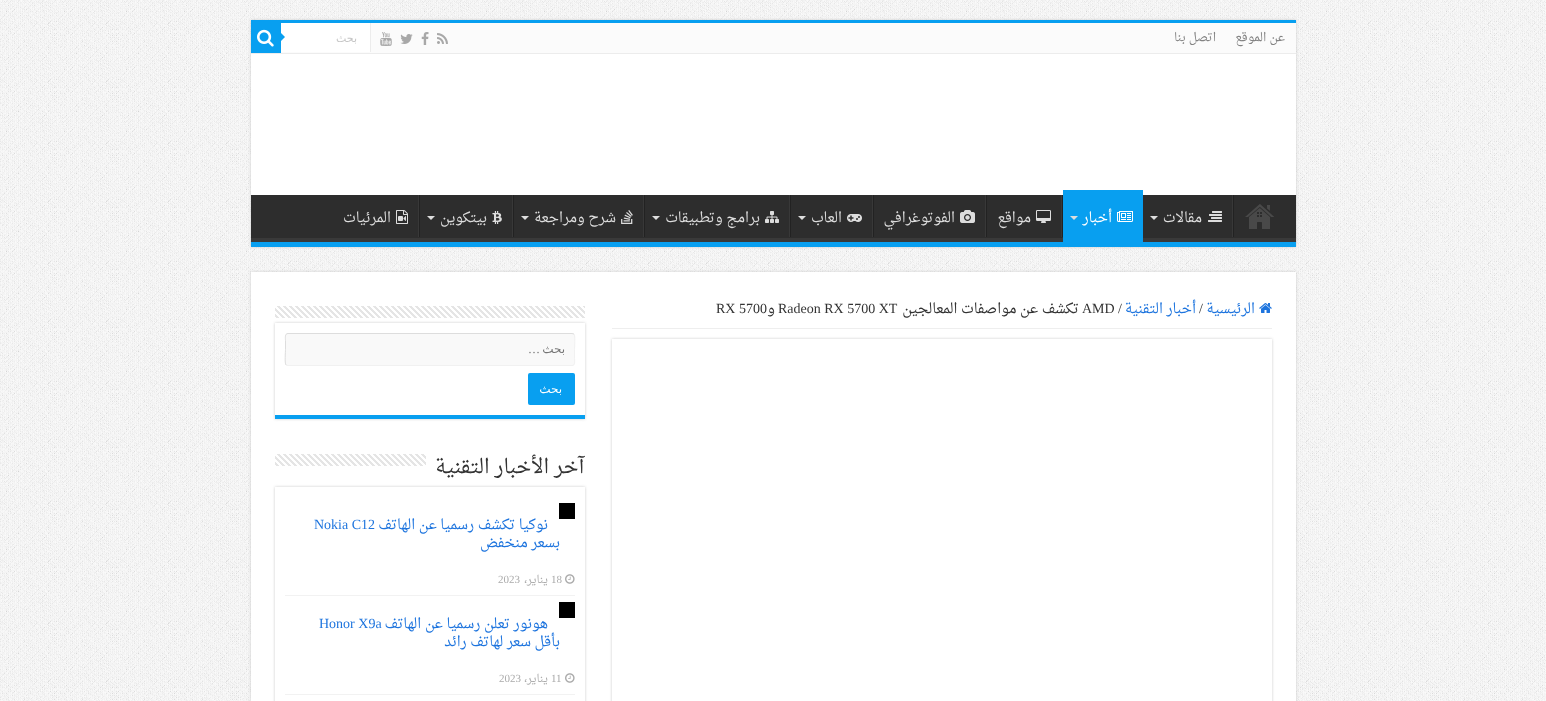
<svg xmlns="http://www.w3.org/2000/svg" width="1546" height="701">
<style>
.a{font:12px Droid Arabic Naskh;direction:rtl;fill:#838383}
.b{font:11px DejaVu Sans;direction:rtl;fill:#c5c5c5}
.c{font:14px Droid Arabic Naskh;direction:rtl;fill:#ddd}
.d{font:14px Droid Arabic Naskh;direction:rtl;fill:#fff}
.e{font:14px Droid Arabic Naskh;direction:rtl;fill:#1d74de}
.f{font:14px Liberation Serif;fill:#333}
.g{font:14px Droid Arabic Naskh;direction:rtl;fill:#333}
.h{font:12px DejaVu Sans;direction:rtl;fill:#757575}
.i{font:12px Liberation Serif;direction:rtl;fill:#757575}
.j{font:12px DejaVu Sans;direction:rtl;fill:#fff}
.k{font:20px Droid Arabic Naskh;direction:rtl;fill:#333}
.l{font:14px Liberation Serif;fill:#1d74de}
.m{font:11px Liberation Serif;fill:#aaa}
.n{font:11px Droid Arabic Naskh;direction:rtl;fill:#aaa}
</style>
<defs>
<clipPath id="clip1"><path d="M251 195h1045v47H251z"/></clipPath>
<clipPath id="clip2"><path d="M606 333h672v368h-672zm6 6h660v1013h-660z" clip-rule="evenodd"/></clipPath>
<clipPath id="clip3"><path d="M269 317h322v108h-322zm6 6h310v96h-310z" clip-rule="evenodd"/></clipPath>
<clipPath id="clip4"><path d="M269 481h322v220h-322zm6 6h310v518h-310z" clip-rule="evenodd"/></clipPath>
</defs>
<rect width="100%" height="100%" fill="#fff"/>
<image href="1.png" x="0" y="0" width="1546" height="701"/>
<path fill="#cacaca" filter="blur(1.5px)" d="M251 20h1045v227H251z"/>
<path fill="#fff" d="M251 54h1045v141H251z"/>
<path fill="#089ff0" d="M251 20h1045v3H251z"/>
<path fill="#fbfbfb" d="M281 23h1015v30H281z"/>
<path fill="#ececec" d="M251 53h1045v1H251z"/>
<image href="2.png" x="437" y="33" width="11" height="11"/>
<image href="3.png" x="421" y="32" width="8" height="13"/>
<image href="4.png" x="400" y="34" width="13" height="10"/>
<image href="5.png" x="380" y="32" width="12" height="14"/>
<path fill="#fff" d="M281 23h89v29H281z"/>
<path fill="#ececec" d="M370 23h1v29H370z"/>
<path fill="#089ff0" d="M251 23h30v30H251z"/>
<image href="6.png" x="257" y="29" width="17" height="18"/>
<path fill="#089ff0" d="M281 41v-8l4 4z"/>
<path fill="#2d2d2d" d="M251 195h1045v43H251z"/>
<g clip-path="url(#clip1)">
<path fill="#393939" fill-rule="evenodd" d="M152 96h1243v245h-1243zm98 93h1046v40c0 1 1 9-1 9h-1045l-1-1v-48z"/>
</g>
<path fill="#089ff0" d="M251 242h1045v5H251z"/>
<image href="7.png" x="1245" y="204" width="29" height="25"/>
<path fill="#222" d="M1233 195h1v42H1233z"/>
<path fill="#383838" d="M1232 195h1v42H1232z"/>
<image href="8.png" x="1208" y="211" width="14" height="11"/>
<path fill="#ddd" d="M1150 216h8l-4 4z"/>
<path fill="#089ff0" d="M1063 190h80v52H1063z"/>
<image href="9.png" x="1117" y="211" width="16" height="11"/>
<path fill="#ddd" d="M1070 216h8l-4 4z"/>
<path fill="#222" d="M1062 195h1v42H1062z"/>
<path fill="#383838" d="M1061 195h1v42H1061z"/>
<image href="10.png" x="1036" y="210" width="15" height="13"/>
<path fill="#222" d="M986 195h1v42H986z"/>
<path fill="#383838" d="M985 195h1v42H985z"/>
<image href="11.png" x="960" y="210" width="15" height="13"/>
<path fill="#222" d="M873 195h1v42H873z"/>
<path fill="#383838" d="M872 195h1v42H872z"/>
<image href="12.png" x="847" y="214" width="15" height="8"/>
<path fill="#ddd" d="M798 216h8l-4 4z"/>
<path fill="#222" d="M790 195h1v42H790z"/>
<path fill="#383838" d="M789 195h1v42H789z"/>
<image href="13.png" x="765" y="211" width="14" height="12"/>
<path fill="#ddd" d="M652 216h8l-4 4z"/>
<path fill="#222" d="M644 195h1v42H644z"/>
<path fill="#383838" d="M643 195h1v42H643z"/>
<image href="14.png" x="621" y="210" width="12" height="14"/>
<path fill="#ddd" d="M521 216h8l-4 4z"/>
<path fill="#222" d="M513 195h1v42H513z"/>
<path fill="#383838" d="M512 195h1v42H512z"/>
<image href="15.png" x="492" y="211" width="10" height="13"/>
<path fill="#ddd" d="M427 216h8l-4 4z"/>
<path fill="#222" d="M419 195h1v42H419z"/>
<path fill="#383838" d="M418 195h1v42H418z"/>
<image href="16.png" x="396" y="210" width="12" height="14"/>
<path fill="#cacaca" filter="blur(1.5px)" d="M251 272h1045v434H251z"/>
<path fill="#fff" d="M251 272h1045v429H251z"/>
<path fill="#eee" d="M612 328h660v1H612z"/>
<image href="17.png" x="1259" y="303" width="13" height="10"/>
<g clip-path="url(#clip2)">
<path fill="#cacaca" filter="blur(1.5px)" d="M612 339h660v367H612z"/>
</g>
<g clip-path="url(#clip3)">
<path fill="#cacaca" filter="blur(1.5px)" d="M275 323h310v96H275z"/>
</g>
<image href="18.png" x="275" y="306" width="310" height="12"/>
<path fill="#089ff0" d="M275 415h310v4H275z"/>
<rect fill="#f9f9f9" x="285" y="333" width="290" height="33" rx="3"/>
<path fill="none" stroke="#f1f1f1" d="M574 334c1.5 2 .5 13 .5 15.5v9c0 2 1 7-2.5 7h-284l-2-.5"/>
<path fill="none" stroke="#ddd" d="M286 365c-1.5-2-.5-13-.5-15.5v-9c0-2-1-7 2.5-7h284l2 .5"/>
<rect fill="#089ff0" x="528" y="373" width="47" height="32" rx="2"/>
<image href="19.png" x="275" y="454" width="151" height="12"/>
<g clip-path="url(#clip4)">
<path fill="#cacaca" filter="blur(1.5px)" d="M275 487h310v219H275z"/>
</g>
<path fill="#f2f2f2" d="M285 595h290v1H285z"/>
<path fill="#000" d="M559 503h16v16H559z"/>
<image href="20.png" x="565" y="574" width="10" height="10"/>
<path fill="#f2f2f2" d="M285 694h290v1H285z"/>
<path fill="#000" d="M559 602h16v16H559z"/>
<image href="20.png" x="565" y="673" width="10" height="10"/>
<text class="a" x="1285" y="41">عن الموقع</text>
<text class="a" x="1216" y="41">اتصل بنا</text>
<text class="b" x="357" y="42">بحث</text>
<text class="c" x="1202" y="222">مقالات</text>
<text class="d" x="1112" y="222">أخبار</text>
<text class="c" x="1031" y="222">مواقع</text>
<text class="c" x="955" y="222">الفوتوغرافي</text>
<text class="c" x="842" y="222">العاب</text>
<text class="c" x="760" y="222">برامج وتطبيقات</text>
<text class="c" x="616" y="222">شرح ومراجعة</text>
<text class="c" x="487" y="222">بيتكوين</text>
<text class="c" x="391" y="222">المرئيات</text>
<text class="e" x="1255" y="313">الرئيسية</text>
<text class="f" x="1199" y="313">/</text>
<text class="e" x="1196" y="313">أخبار التقنية</text>
<text class="f" x="1118" y="313">/</text>
<text class="f" x="1082" y="313">AMD</text>
<text class="g" x="1079" y="313">تكشف عن مواصفات المعالجين</text>
<text class="f" x="778" y="313">Radeon RX 5700 XT</text>
<text class="g" x="775" y="313">و</text>
<text class="f" x="716" y="313">RX 5700</text>
<text class="h" x="565" y="353">بحث</text>
<text class="i" x="540" y="353">…</text>
<text class="j" x="562" y="393">بحث</text>
<text class="k" x="584" y="473">آخر الأخبار التقنية</text>
<text class="e" x="548" y="529">نوكيا تكشف رسميا عن الهاتف</text>
<text class="l" x="314" y="529">Nokia C12</text>
<text class="e" x="560" y="547">بسعر منخفض</text>
<text class="m" x="551" y="583">18</text>
<text class="n" x="548" y="583">يناير،</text>
<text class="m" x="498" y="583">2023</text>
<text class="e" x="548" y="628">هونور تعلن رسميا عن الهاتف</text>
<text class="l" x="319" y="628">Honor X9a</text>
<text class="e" x="560" y="646">بأقل سعر لهاتف رائد</text>
<text class="m" x="551" y="682">11</text>
<text class="n" x="548" y="682">يناير،</text>
<text class="m" x="499" y="682">2023</text>
</svg>
